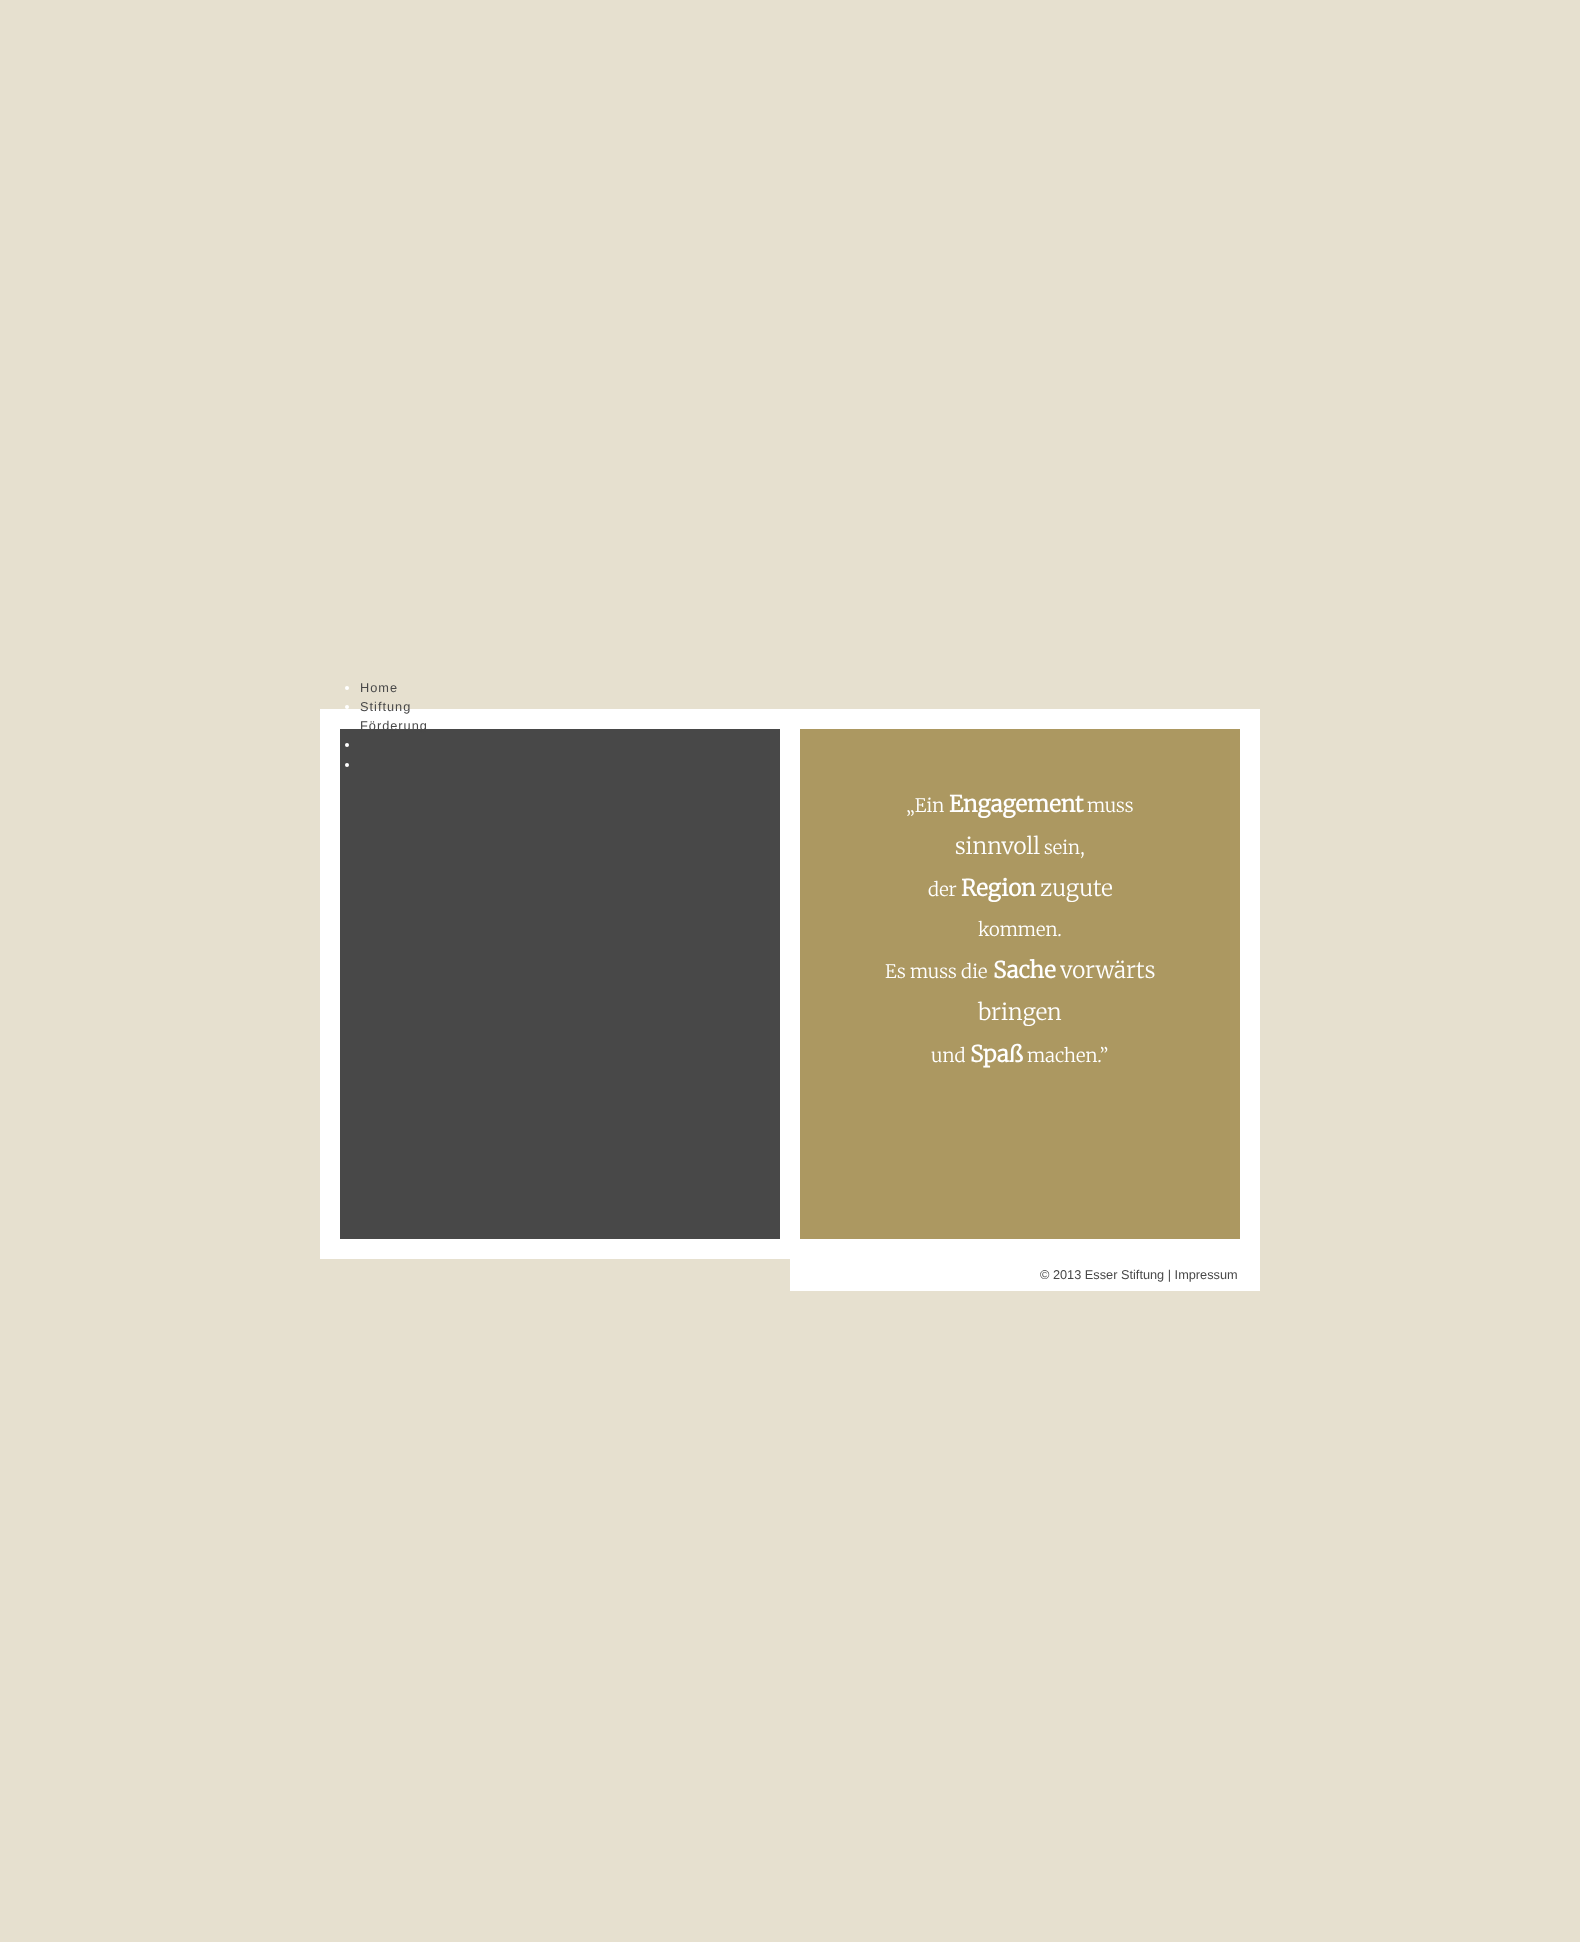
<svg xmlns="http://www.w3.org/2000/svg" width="1580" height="1942">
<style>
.a{font:12.75px Liberation Sans;letter-spacing:1px;fill:#484848}
.b{font:300 18.5px Merriweather;fill:#fff}
.c{font:bold 22.5px Merriweather;fill:#fff}
.d{font:300 22.5px Merriweather;fill:#fff}
.e{font:12.75px Liberation Sans;fill:#484848}
</style>
<rect width="100%" height="100%" fill="#e6e0cf"/>
<circle fill="#fff" cx="347" cy="688" r="2"/>
<circle fill="#fff" cx="347" cy="707" r="2"/>
<path fill="none" stroke="#fff" stroke-width="20" d="M330 719h920v530H330z"/>
<path fill="#484848" d="M340 729h440v510H340z"/>
<circle fill="#fff" cx="347" cy="745" r="2"/>
<circle fill="#fff" cx="347" cy="765" r="2"/>
<path fill="#fff" d="M780 729h20v510H780z"/>
<path fill="#ac9861" d="M800 729h440v510H800z"/>
<path fill="#fff" d="M790 1259h470v32H790z"/>
<text class="a" x="360" y="692">Home</text>
<text class="a" x="360" y="711">Stiftung</text>
<text class="a" x="360" y="730">Förderung</text>
<text class="b" x="906" y="812">„Ein</text>
<text class="c" x="949" y="812">Engagement</text>
<text class="b" x="1087" y="812">muss</text>
<text class="d" x="955" y="854">sinnvoll</text>
<text class="b" x="1044" y="854">sein,</text>
<text class="b" x="928" y="896">der</text>
<text class="c" x="961" y="896">Region</text>
<text class="d" x="1040" y="896">zugute</text>
<text class="b" x="978" y="936">kommen.</text>
<text class="b" x="885" y="978">Es muss die</text>
<text class="c" x="993" y="978">Sache</text>
<text class="d" x="1060" y="978">vorwärts</text>
<text class="d" x="978" y="1020">bringen</text>
<text class="b" x="931" y="1062">und</text>
<text class="c" x="970" y="1062">Spaß</text>
<text class="b" x="1027" y="1062">machen.”</text>
<text class="e" x="1040" y="1279">© 2013 Esser Stiftung | Impressum</text>
</svg>
